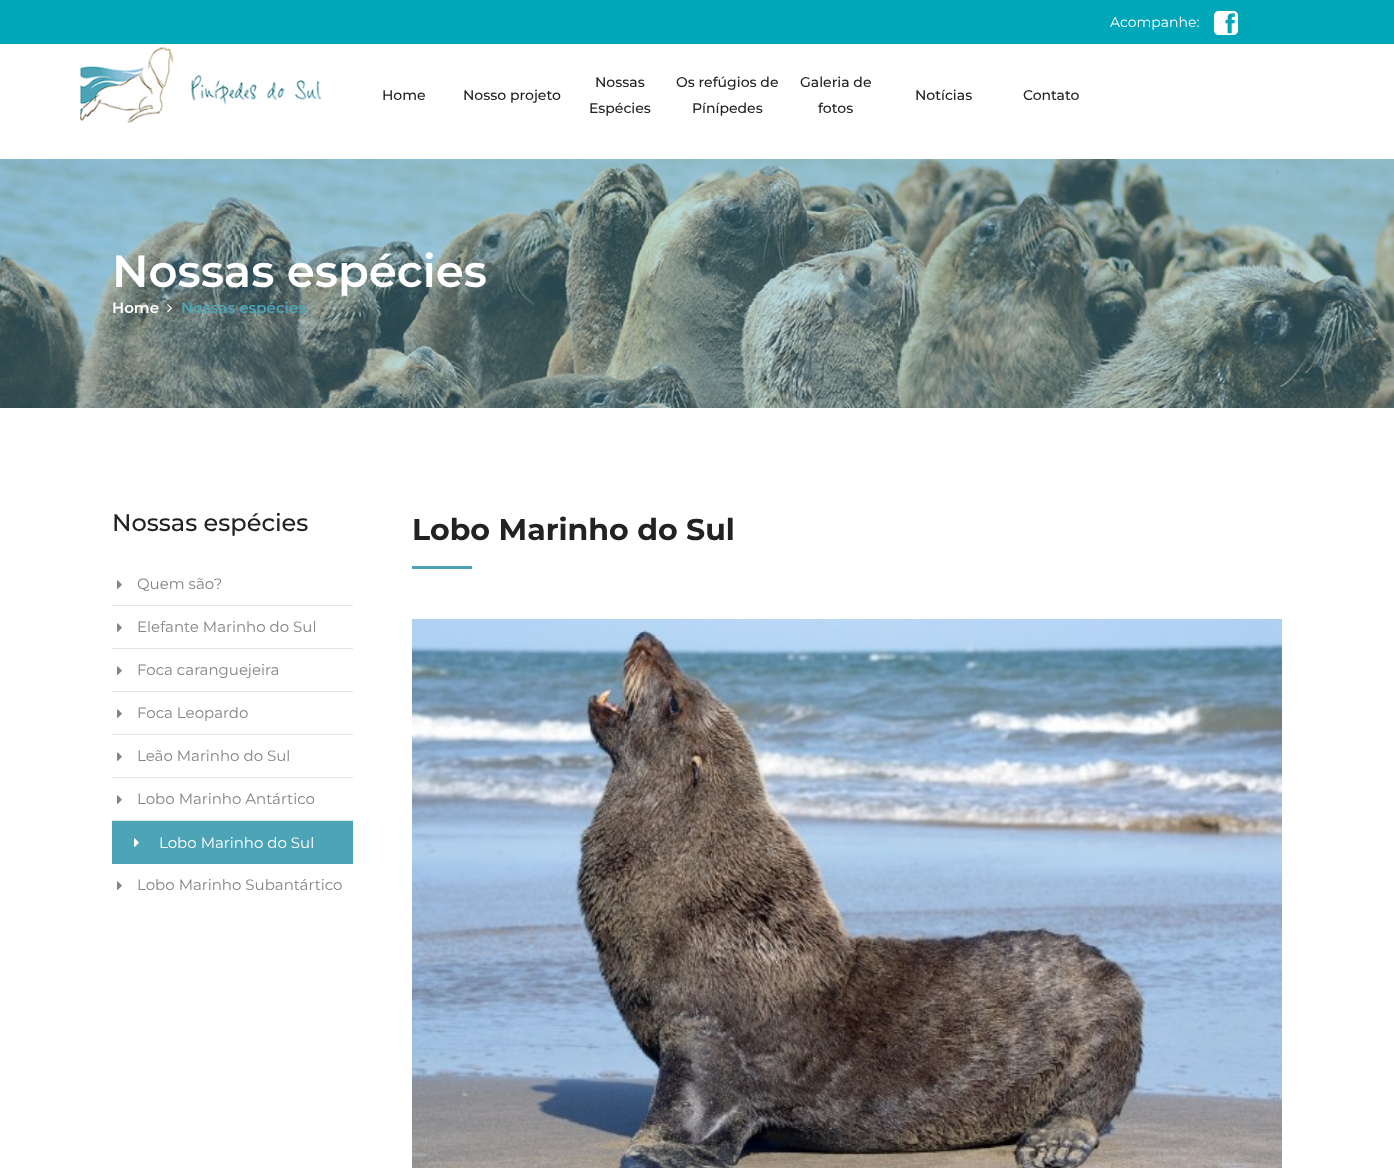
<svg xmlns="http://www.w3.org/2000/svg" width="1394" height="1168">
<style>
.a{font:14px Montserrat;fill:#fff}
.b{font:500 14px Montserrat;fill:#222}
.c{font:600 45px Montserrat;fill:#fff}
.d{font:600 15px Montserrat;fill:#fff}
.e{font:600 15px Montserrat;fill:#4da4b6}
.f{font:500 24px Montserrat;fill:#222}
.g{font:15px Montserrat;fill:#848484}
.h{font:15px Montserrat;fill:#fff}
.i{font:bold 30px Montserrat;fill:#222}
</style>
<rect width="100%" height="100%" fill="#fff"/>
<path fill="#00a7b9" d="M0 0h1394v44H0z"/>
<image href="1.png" x="1214" y="11" width="24" height="24"/>
<image href="2.png" x="80" y="47" width="242" height="77"/>
<image href="3.png" x="0" y="159" width="1394" height="249"/>
<image href="4.png" x="167" y="304" width="5" height="9"/>
<path fill="#e5e5e5" d="M112 605h241v1H112z"/>
<image href="5.png" x="117" y="580" width="5" height="9"/>
<path fill="#e5e5e5" d="M112 648h241v1H112z"/>
<image href="5.png" x="117" y="623" width="5" height="9"/>
<path fill="#e5e5e5" d="M112 691h241v1H112z"/>
<image href="5.png" x="117" y="666" width="5" height="9"/>
<path fill="#e5e5e5" d="M112 734h241v1H112z"/>
<image href="5.png" x="117" y="709" width="5" height="9"/>
<path fill="#e5e5e5" d="M112 777h241v1H112z"/>
<image href="5.png" x="117" y="752" width="5" height="9"/>
<path fill="#e5e5e5" d="M112 820h241v1H112z"/>
<image href="5.png" x="117" y="795" width="5" height="9"/>
<path fill="#4da4b6" d="M112 821h241v43H112z"/>
<image href="6.png" x="134" y="838" width="5" height="9"/>
<image href="5.png" x="117" y="881" width="5" height="9"/>
<path fill="#4da4b6" d="M412 566h60v3H412z"/>
<image href="7.png" x="412" y="619" width="870" height="549"/>
<text class="a" x="1110" y="27">Acompanhe:</text>
<text class="b" x="382" y="100">Home</text>
<text class="b" x="463" y="100">Nosso projeto</text>
<text class="b" x="595" y="87">Nossas</text>
<text class="b" x="589" y="113">Espécies</text>
<text class="b" x="676" y="87">Os refúgios de</text>
<text class="b" x="692" y="113">Pínípedes</text>
<text class="b" x="800" y="87">Galeria de</text>
<text class="b" x="818" y="113">fotos</text>
<text class="b" x="915" y="100">Notícias</text>
<text class="b" x="1023" y="100">Contato</text>
<text class="c" x="112" y="287">Nossas espécies</text>
<text class="d" x="112" y="313">Home</text>
<text class="e" x="181" y="313">Nossas espécies</text>
<text class="f" x="112" y="531">Nossas espécies</text>
<text class="g" x="137" y="589">Quem são?</text>
<text class="g" x="137" y="632">Elefante Marinho do Sul</text>
<text class="g" x="137" y="675">Foca caranguejeira</text>
<text class="g" x="137" y="718">Foca Leopardo</text>
<text class="g" x="137" y="761">Leão Marinho do Sul</text>
<text class="g" x="137" y="804">Lobo Marinho Antártico</text>
<text class="h" x="159" y="848">Lobo Marinho do Sul</text>
<text class="g" x="137" y="890">Lobo Marinho Subantártico</text>
<text class="i" x="412" y="540">Lobo Marinho do Sul</text>
</svg>
